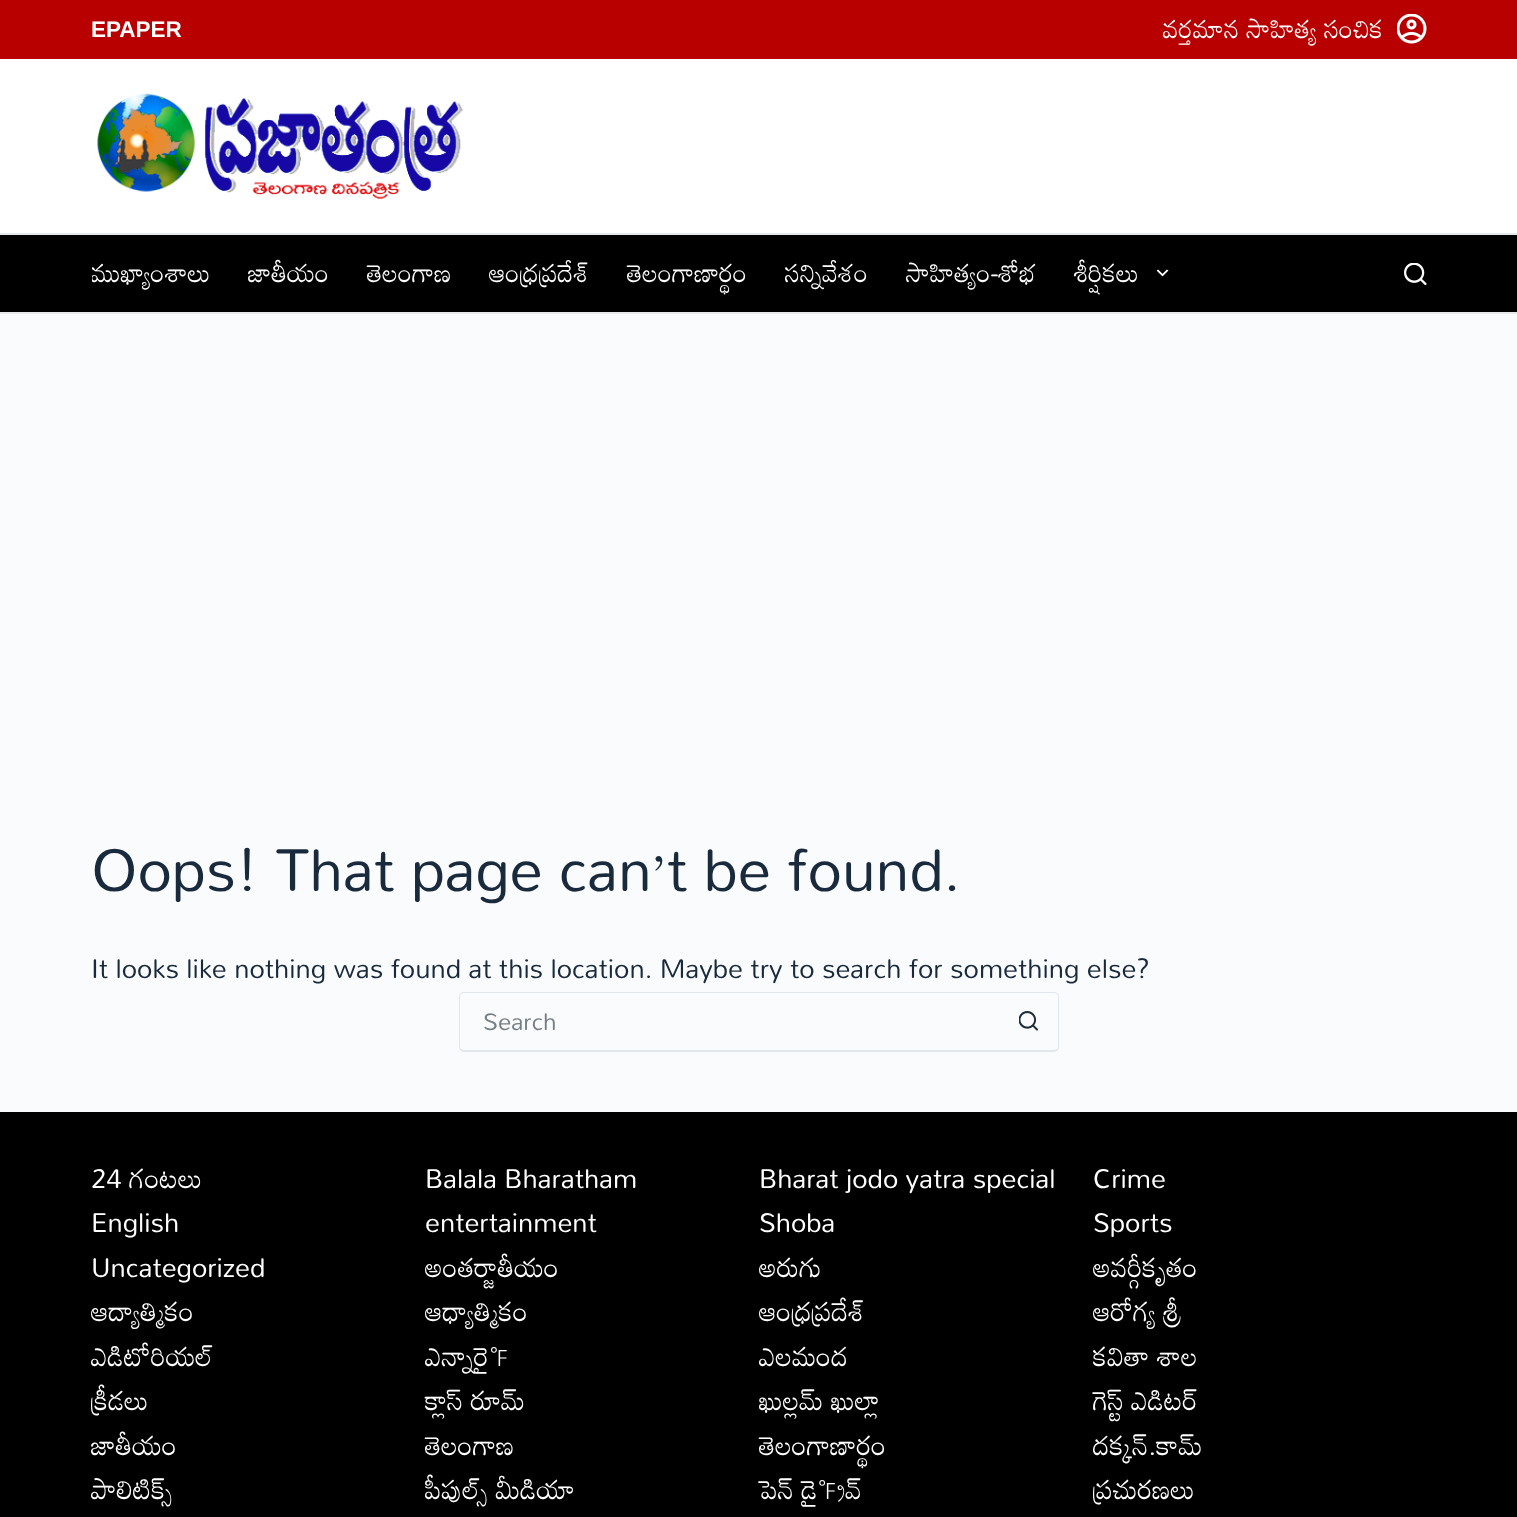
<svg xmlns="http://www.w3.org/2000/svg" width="1517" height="1517">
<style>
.a{font:bold 22.5px Liberation Sans;fill:#fff}
.b{font:25.5px Mandali;fill:#fff}
.c{font:60px Mandali;fill:#192a3d}
.d{font:27px Mandali;fill:#192a3d}
.e{font:24px Mandali;fill:#757f86}
.f{font:27px Mandali;fill:#fff}
</style>
<defs>
<clipPath id="clip1"><path d="M92 234h1095v78H92z"/></clipPath>
</defs>
<rect width="100%" height="100%" fill="#fafbfc"/>
<path fill="#b80000" d="M0 0h1517v59H0z"/>
<image href="1.png" x="1397" y="14" width="30" height="30"/>
<path fill="#fff" d="M0 59h1517v174H0z"/>
<image href="2.png" x="97" y="93" width="366" height="106"/>
<path fill="#000" d="M0 235h1517v77H0z"/>
<path fill="#e6e8ea" d="M0 233h1517v2H0z"/>
<path fill="#e6e8ea" d="M0 312h1517v2H0z"/>
<image href="3.png" x="1157" y="269" width="12" height="8"/>
<image href="4.png" x="1404" y="263" width="23" height="22"/>
<path fill="#e1e8ed" fill-rule="evenodd" d="M464 992h535v60h-535c-3 0-5-3-5-5v-51c0-2 2-4 5-4zm0 1h535v57h-535c-2 0-4-1-4-3v-51c0-2 2-3 4-3z"/>
<path fill="#e1e8ed" fill-rule="evenodd" d="M999 992h55c3 0 5 2 5 4v51c0 2-2 5-5 5h-55zm0 1h55c2 0 4 1 4 3v51c0 2-2 3-4 3h-55z"/>
<image href="5.png" x="1019" y="1011" width="19" height="20"/>
<path fill="#000" d="M0 1112h1517v405H0z"/>
<text class="a" x="91" y="37">EPAPER</text>
<text class="b" x="1163" y="38">వర్తమాన సాహిత్య సంచిక</text>
<g clip-path="url(#clip1)">
<text class="b" x="91" y="282">ముఖ్యాంశాలు</text>
</g>
<text class="b" x="248" y="282">జాతీయం</text>
<text class="b" x="367" y="282">తెలంగాణ</text>
<text class="b" x="489" y="282">ఆంధ్రప్రదేశ్</text>
<text class="b" x="627" y="282">తెలంగాణార్థం</text>
<text class="b" x="785" y="282">సన్నివేశం</text>
<text class="b" x="906" y="282">సాహిత్యం-శోభ</text>
<text class="b" x="1074" y="282">శీర్షికలు</text>
<text class="c" x="91" y="891">Oops! That page can’t be found.</text>
<text class="d" x="91" y="978">It looks like nothing was found at this location. Maybe try to search for something else?</text>
<text class="e" x="483" y="1030">Search</text>
<text class="f" x="91" y="1188">24 గంటలు</text>
<text class="f" x="425" y="1188">Balala Bharatham</text>
<text class="f" x="759" y="1188">Bharat jodo yatra special</text>
<text class="f" x="1093" y="1188">Crime</text>
<text class="f" x="91" y="1232">English</text>
<text class="f" x="425" y="1232">entertainment</text>
<text class="f" x="759" y="1232">Shoba</text>
<text class="f" x="1093" y="1232">Sports</text>
<text class="f" x="91" y="1277">Uncategorized</text>
<text class="f" x="425" y="1277">అంతర్జాతీయం</text>
<text class="f" x="759" y="1277">అరుగు</text>
<text class="f" x="1093" y="1277">అవర్గీకృతం</text>
<text class="f" x="91" y="1321">ఆద్యాత్మికం</text>
<text class="f" x="425" y="1321">ఆధ్యాత్మికం</text>
<text class="f" x="759" y="1321">ఆంధ్రప్రదేశ్</text>
<text class="f" x="1093" y="1321">ఆరోగ్య శ్రీ</text>
<text class="f" x="91" y="1366">ఎడిటోరియల్</text>
<text class="f" x="425" y="1366">ఎన్నారై</text>
<text class="f" x="759" y="1366">ఎలమంద</text>
<text class="f" x="1093" y="1366">కవితా శాల</text>
<text class="f" x="91" y="1410">క్రీడలు</text>
<text class="f" x="425" y="1410">క్లాస్ రూమ్</text>
<text class="f" x="759" y="1410">ఖుల్లమ్ ఖుల్లా</text>
<text class="f" x="1093" y="1410">గెస్ట్ ఎడిటర్</text>
<text class="f" x="91" y="1455">జాతీయం</text>
<text class="f" x="425" y="1455">తెలంగాణ</text>
<text class="f" x="759" y="1455">తెలంగాణార్థం</text>
<text class="f" x="1093" y="1455">దక్కన్.కామ్</text>
<text class="f" x="91" y="1499">పాలిటిక్స్</text>
<text class="f" x="425" y="1499">పీపుల్స్ ‌మీడియా</text>
<text class="f" x="759" y="1499">పెన్ డ్రైవ్</text>
<text class="f" x="1093" y="1499">ప్రచురణలు</text>
</svg>
